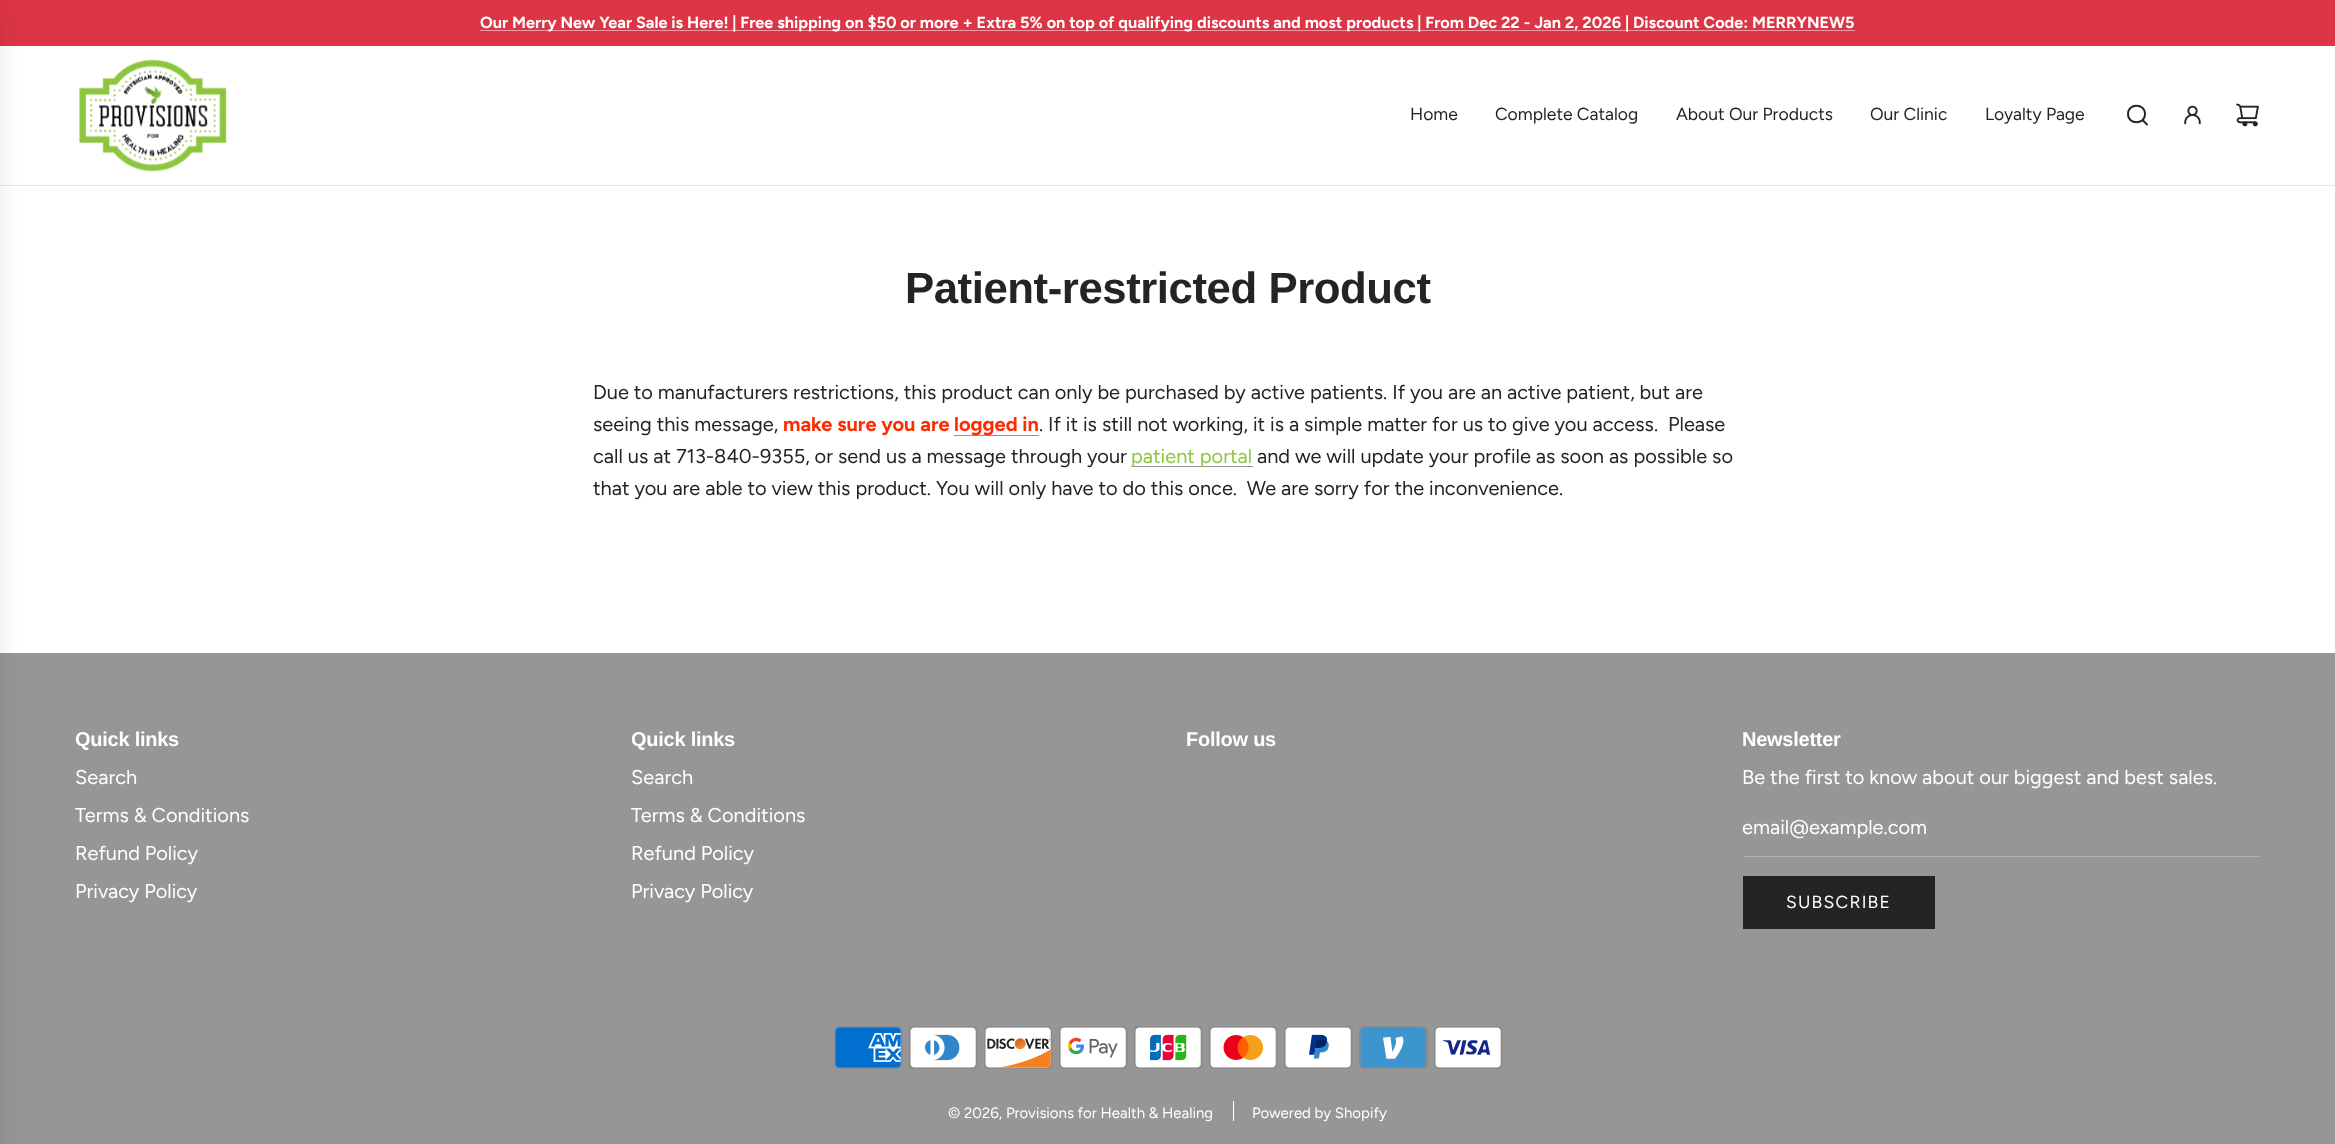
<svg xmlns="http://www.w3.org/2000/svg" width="2335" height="1144">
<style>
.a{font:bold 16.25px Figtree;fill:#fff}
.b{font:17.5px Figtree;fill:#242424}
.c{font:bold 43.75px Liberation Sans;letter-spacing:-0.45px;fill:#242424}
.d{font:20px Figtree;fill:#242424}
.e{font:bold 20px Figtree;fill:#ff2a00}
.f{font:20px Figtree;fill:#8dc63f}
.g{font:bold 20px Liberation Sans;letter-spacing:-0.25px;fill:#fff}
.h{font:20px Figtree;fill:#fff}
.i{font:17.5px Figtree;letter-spacing:1.25px;fill:#fff}
.j{font:15px Figtree;fill:#fff}
</style>
<defs>
<clipPath id="clip1"><path d="M1743 815h505v24H1743z"/></clipPath>
</defs>
<rect width="100%" height="100%" fill="#fff"/>
<path fill="#dc3545" d="M0 0h2335v46H0z"/>
<path fill="#ee9aa2" d="M480 30h1375v1H480z"/>
<path fill="#e6e5e7" d="M0 185h2335v1H0z"/>
<path fill="#969696" d="M0 653h2335v491H0z"/>
<path fill="#0000001a" filter="blur(9.5px)" d="M-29 6h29v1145H-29z"/>
<image href="1.png" x="79" y="59" width="148" height="113"/>
<path fill="none" stroke="#242424" stroke-width="1.9" stroke-linecap="round" stroke-linejoin="round" d="M2142.5 120l4.5 4.5m-19-10.5c0 11 17 11 17 0c0-11-17-11-17 0z"/>
<image href="2.png" x="2184" y="105" width="17" height="20"/>
<image href="3.png" x="2236" y="103" width="23" height="24"/>
<path fill="#929292" d="M954 435h85v1H954z"/>
<path fill="#929292" d="M1131 466h122v1H1131z"/>
<path fill="#b0b0b0" d="M1743 856h517v1H1743z"/>
<path fill="#242424" d="M1743 876h192v53H1743z"/>
<image href="4.png" x="834" y="1026" width="69" height="43"/>
<image href="5.png" x="909" y="1026" width="69" height="43"/>
<image href="6.png" x="984" y="1026" width="69" height="43"/>
<image href="7.png" x="1059" y="1026" width="69" height="43"/>
<image href="8.png" x="1134" y="1026" width="69" height="43"/>
<image href="9.png" x="1209" y="1026" width="69" height="43"/>
<image href="10.png" x="1284" y="1026" width="69" height="43"/>
<image href="11.png" x="1359" y="1026" width="69" height="43"/>
<image href="12.png" x="1434" y="1026" width="69" height="43"/>
<path fill="#fff" d="M1233 1101h1v20H1233z"/>
<text class="a" x="480" y="28">Our Merry New Year Sale is Here! | Free shipping on $50 or more + Extra 5% on top of qualifying discounts and most products | From Dec 22 - Jan 2, 2026 | Discount Code: MERRYNEW5</text>
<text class="b" x="1410" y="120">Home</text>
<text class="b" x="1495" y="120">Complete Catalog</text>
<text class="b" x="1676" y="120">About Our Products</text>
<text class="b" x="1870" y="120">Our Clinic</text>
<text class="b" x="1985" y="120">Loyalty Page</text>
<text class="c" x="905" y="303">Patient-restricted Product</text>
<text class="d" x="593" y="399">Due to manufacturers restrictions, this product can only be purchased by active patients. If you are an active patient, but are</text>
<text class="d" x="593" y="431">seeing this message,</text>
<text class="e" x="783" y="431">make sure you are</text>
<text class="e" x="954" y="431">logged in</text>
<text class="d" xml:space="preserve" x="1039" y="431">. If it is still not working, it is a simple matter for us to give you access.  Please</text>
<text class="d" x="593" y="463">call us at 713-840-9355, or send us a message through your</text>
<text class="f" x="1131" y="463">patient portal</text>
<text class="d" x="1257" y="463">and we will update your profile as soon as possible so</text>
<text class="d" xml:space="preserve" x="593" y="495">that you are able to view this product. You will only have to do this once.  We are sorry for the inconvenience.</text>
<text class="g" x="75" y="746">Quick links</text>
<text class="h" x="75" y="784">Search</text>
<text class="h" x="75" y="822">Terms &amp; Conditions</text>
<text class="h" x="75" y="860">Refund Policy</text>
<text class="h" x="75" y="898">Privacy Policy</text>
<text class="g" x="631" y="746">Quick links</text>
<text class="h" x="631" y="784">Search</text>
<text class="h" x="631" y="822">Terms &amp; Conditions</text>
<text class="h" x="631" y="860">Refund Policy</text>
<text class="h" x="631" y="898">Privacy Policy</text>
<text class="g" x="1186" y="746">Follow us</text>
<text class="g" x="1742" y="746">Newsletter</text>
<text class="h" x="1742" y="784">Be the first to know about our biggest and best sales.</text>
<g clip-path="url(#clip1)">
<text class="h" x="1742" y="834">email@example.com</text>
</g>
<text class="i" x="1786" y="908">SUBSCRIBE</text>
<text class="j" x="948" y="1118">© 2026, Provisions for Health &amp; Healing</text>
<text class="j" x="1252" y="1118">Powered by Shopify</text>
</svg>
